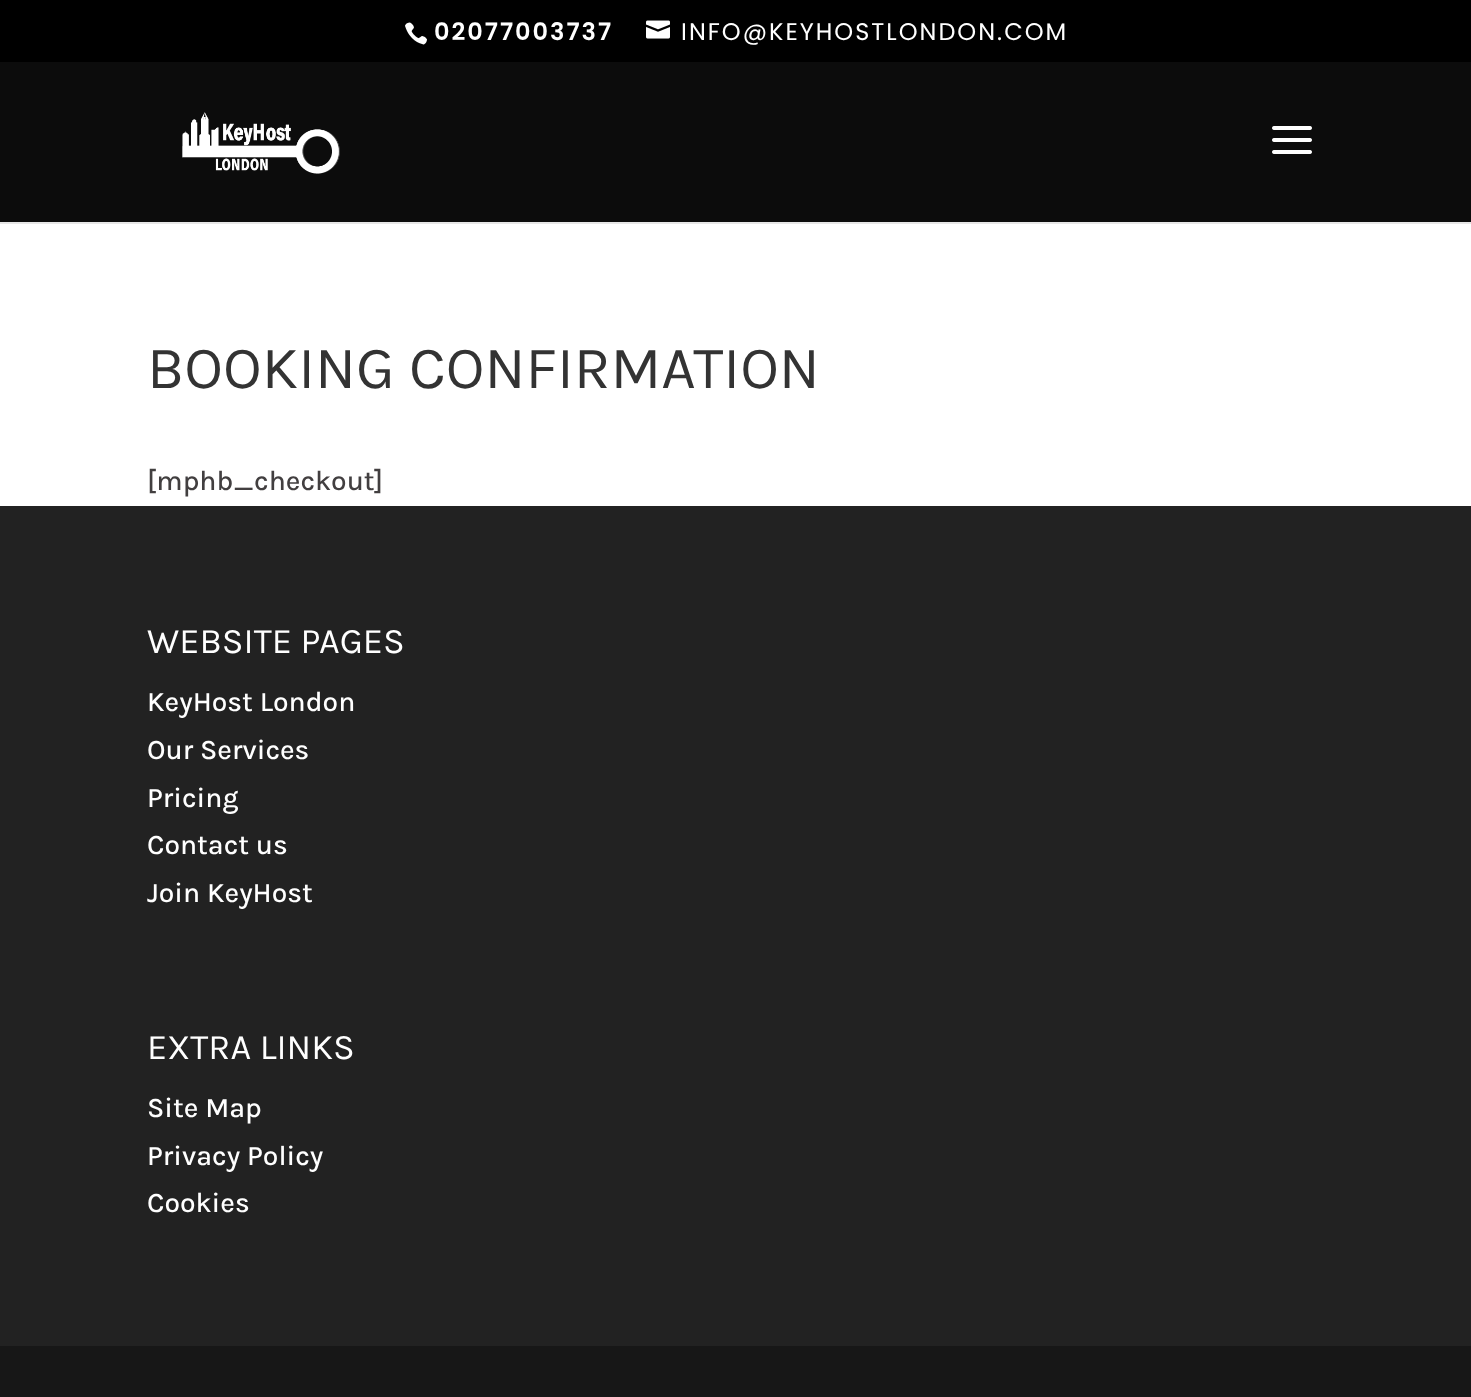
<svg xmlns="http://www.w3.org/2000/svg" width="1471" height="1397">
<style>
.a{font:600 24px Poppins;letter-spacing:2px;fill:#fff}
.b{font:24px Poppins;letter-spacing:2px;fill:#fff}
.c{font:60px Karla;fill:#333}
.d{font:500 28px Karla;fill:#423f40}
.e{font:36px Karla;fill:#fff}
.f{font:500 28px Karla;fill:#fff}
</style>
<rect width="100%" height="100%" fill="#fff"/>
<path fill="#000" d="M0 0h1471v62H0z"/>
<image href="1.png" x="405" y="22" width="22" height="23"/>
<image href="2.png" x="646" y="20" width="24" height="19"/>
<path fill="#e6e6e6" d="M0 222h1471v2H0z"/>
<path fill="#0c0c0c" d="M0 62h1471v160H0z"/>
<image href="3.png" x="182" y="112" width="158" height="62"/>
<image href="4.png" x="1272" y="126" width="40" height="28"/>
<path fill="#222" d="M0 506h1471v840H0z"/>
<path fill="#171717" d="M0 1346h1471v51H0z"/>
<text class="a" x="434" y="40">02077003737</text>
<text class="b" x="681" y="40">INFO@KEYHOSTLONDON.COM</text>
<text class="c" x="147" y="388">BOOKING CONFIRMATION</text>
<text class="d" x="147" y="490">[mphb_checkout]</text>
<text class="e" x="147" y="653">WEBSITE PAGES</text>
<text class="f" x="147" y="711">KeyHost London</text>
<text class="f" x="147" y="759">Our Services</text>
<text class="f" x="147" y="807">Pricing</text>
<text class="f" x="147" y="854">Contact us</text>
<text class="f" x="147" y="902">Join KeyHost</text>
<text class="e" x="147" y="1059">EXTRA LINKS</text>
<text class="f" x="147" y="1117">Site Map</text>
<text class="f" x="147" y="1165">Privacy Policy</text>
<text class="f" x="147" y="1212">Cookies</text>
</svg>
